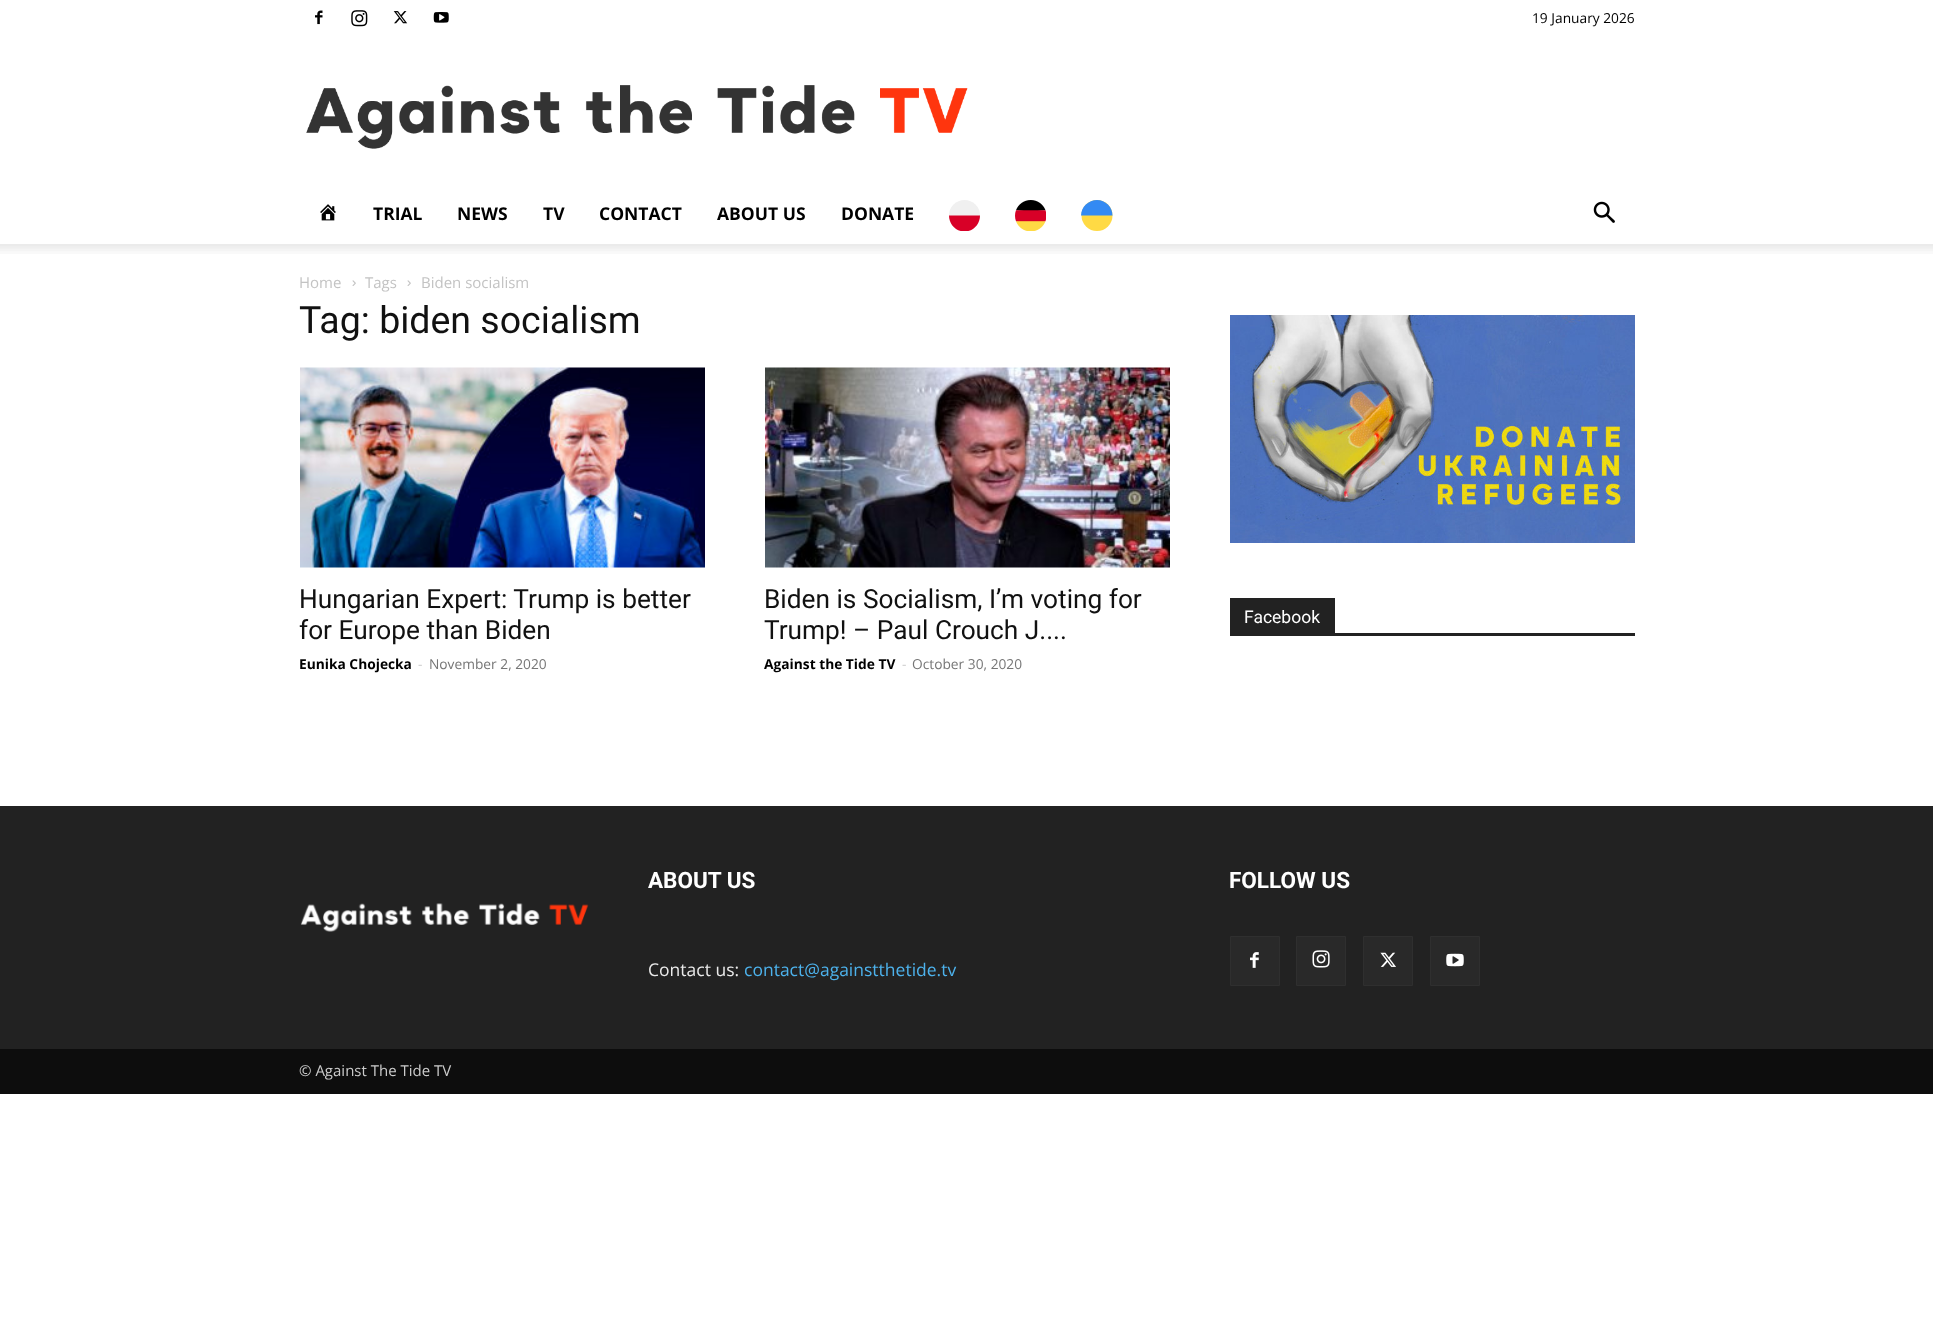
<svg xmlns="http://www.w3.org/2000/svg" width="1933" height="1335">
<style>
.a{font:13.75px Open Sans;fill:#000}
.b{font:bold 17.5px Open Sans;fill:#000}
.c{font:15px Open Sans;fill:#c3c3c3}
.d{font:37.5px Roboto;fill:#111}
.e{font:26.25px Roboto;fill:#111}
.f{font:bold 13.75px Open Sans;fill:#000}
.g{font:13.75px Open Sans;fill:#ccc}
.h{font:13.75px Open Sans;fill:#767676}
.i{font:17.5px Roboto;fill:#fff}
.j{font:bold 22.5px Roboto;fill:#fff}
.k{font:17.5px Open Sans;fill:#eaeaea}
.l{font:17.5px Open Sans;fill:#4db2ec}
.m{font:15px Open Sans;fill:#ccc}
</style>
<defs>
<clipPath id="clip1"><path d="M949 200h31v31H949z"/></clipPath>
</defs>
<rect width="100%" height="100%" fill="#fff"/>
<image href="1.png" x="315" y="10" width="8" height="15"/>
<image href="2.png" x="351" y="10" width="17" height="17"/>
<image href="3.png" x="393" y="11" width="15" height="13"/>
<image href="4.png" x="433" y="12" width="16" height="11"/>
<image href="5.png" x="306" y="85" width="662" height="64"/>
<image href="6.png" x="320" y="204" width="16" height="17"/>
<circle fill="#f0f0f0" cx="964.5" cy="215.5" r="15.5"/>
<g clip-path="url(#clip1)">
<path fill="#d80027" d="M980 215.5c0 9-7 16-15.5 16c-8.5 0-15.5-7-15.5-16"/>
</g>
<image href="7.png" x="1015" y="200" width="31" height="31"/>
<circle fill="#ffda44" cx="1097" cy="215.5" r="15.5"/>
<path fill="#338af3" d="M1081 215.5c0-8.5 7.5-15.5 16-15.5c8.5 0 15.5 7 15.5 15.5"/>
<image href="8.png" x="1593" y="201" width="22" height="22"/>
<image href="9.png" x="0" y="244" width="1933" height="10"/>
<image href="10.png" x="352" y="280" width="4" height="6"/>
<image href="10.png" x="407" y="280" width="4" height="6"/>
<image href="11.png" x="300" y="367" width="405" height="201"/>
<image href="12.png" x="765" y="367" width="405" height="201"/>
<image href="13.png" x="1230" y="315" width="405" height="228"/>
<path fill="#222" d="M1230 633h405v3H1230z"/>
<path fill="#222" d="M1230 598h105v35H1230z"/>
<path fill="#222" d="M0 806h1933v243H0z"/>
<path fill="#292929" d="M1231 937h48v48H1231z"/>
<image href="14.png" x="1250" y="952" width="9" height="16"/>
<path fill="none" stroke="#2f2f2f" d="M1230.5 936.5h49v49H1230.5z"/>
<path fill="#292929" d="M1297 937h48v48H1297z"/>
<image href="15.png" x="1312" y="950" width="18" height="18"/>
<path fill="none" stroke="#2f2f2f" d="M1296.5 936.5h49v49H1296.5z"/>
<path fill="#292929" d="M1364 937h48v48H1364z"/>
<image href="16.png" x="1380" y="952" width="16" height="15"/>
<path fill="none" stroke="#2f2f2f" d="M1363.5 936.5h49v49H1363.5z"/>
<path fill="#292929" d="M1431 937h48v48H1431z"/>
<image href="17.png" x="1446" y="953" width="18" height="14"/>
<path fill="none" stroke="#2f2f2f" d="M1430.5 936.5h49v49H1430.5z"/>
<image href="18.png" x="300" y="903" width="289" height="29"/>
<path fill="#0d0d0d" d="M0 1049h1933v45H0z"/>
<text class="a" x="1532" y="23">19 January 2026</text>
<text class="b" x="373" y="220">TRIAL</text>
<text class="b" x="457" y="220">NEWS</text>
<text class="b" x="543" y="220">TV</text>
<text class="b" x="599" y="220">CONTACT</text>
<text class="b" x="717" y="220">ABOUT US</text>
<text class="b" x="841" y="220">DONATE</text>
<text class="c" x="299" y="288">Home</text>
<text class="c" x="365" y="288">Tags</text>
<text class="c" x="421" y="288">Biden socialism</text>
<text class="d" x="299" y="333">Tag: biden socialism</text>
<text class="e" x="299" y="608">Hungarian Expert: Trump is better</text>
<text class="e" x="299" y="639">for Europe than Biden</text>
<text class="f" x="299" y="669">Eunika Chojecka</text>
<text class="g" x="418" y="669">-</text>
<text class="h" x="429" y="669">November 2, 2020</text>
<text class="e" x="764" y="608">Biden is Socialism, I’m voting for</text>
<text class="e" x="764" y="639">Trump! – Paul Crouch J....</text>
<text class="f" x="764" y="669">Against the Tide TV</text>
<text class="g" x="902" y="669">-</text>
<text class="h" x="912" y="669">October 30, 2020</text>
<text class="i" x="1244" y="623">Facebook</text>
<text class="j" x="648" y="888">ABOUT US</text>
<text class="k" x="648" y="976">Contact us:</text>
<text class="l" x="744" y="976">contact@againstthetide.tv</text>
<text class="j" x="1229" y="888">FOLLOW US</text>
<text class="m" x="299" y="1076">© Against The Tide TV</text>
</svg>
